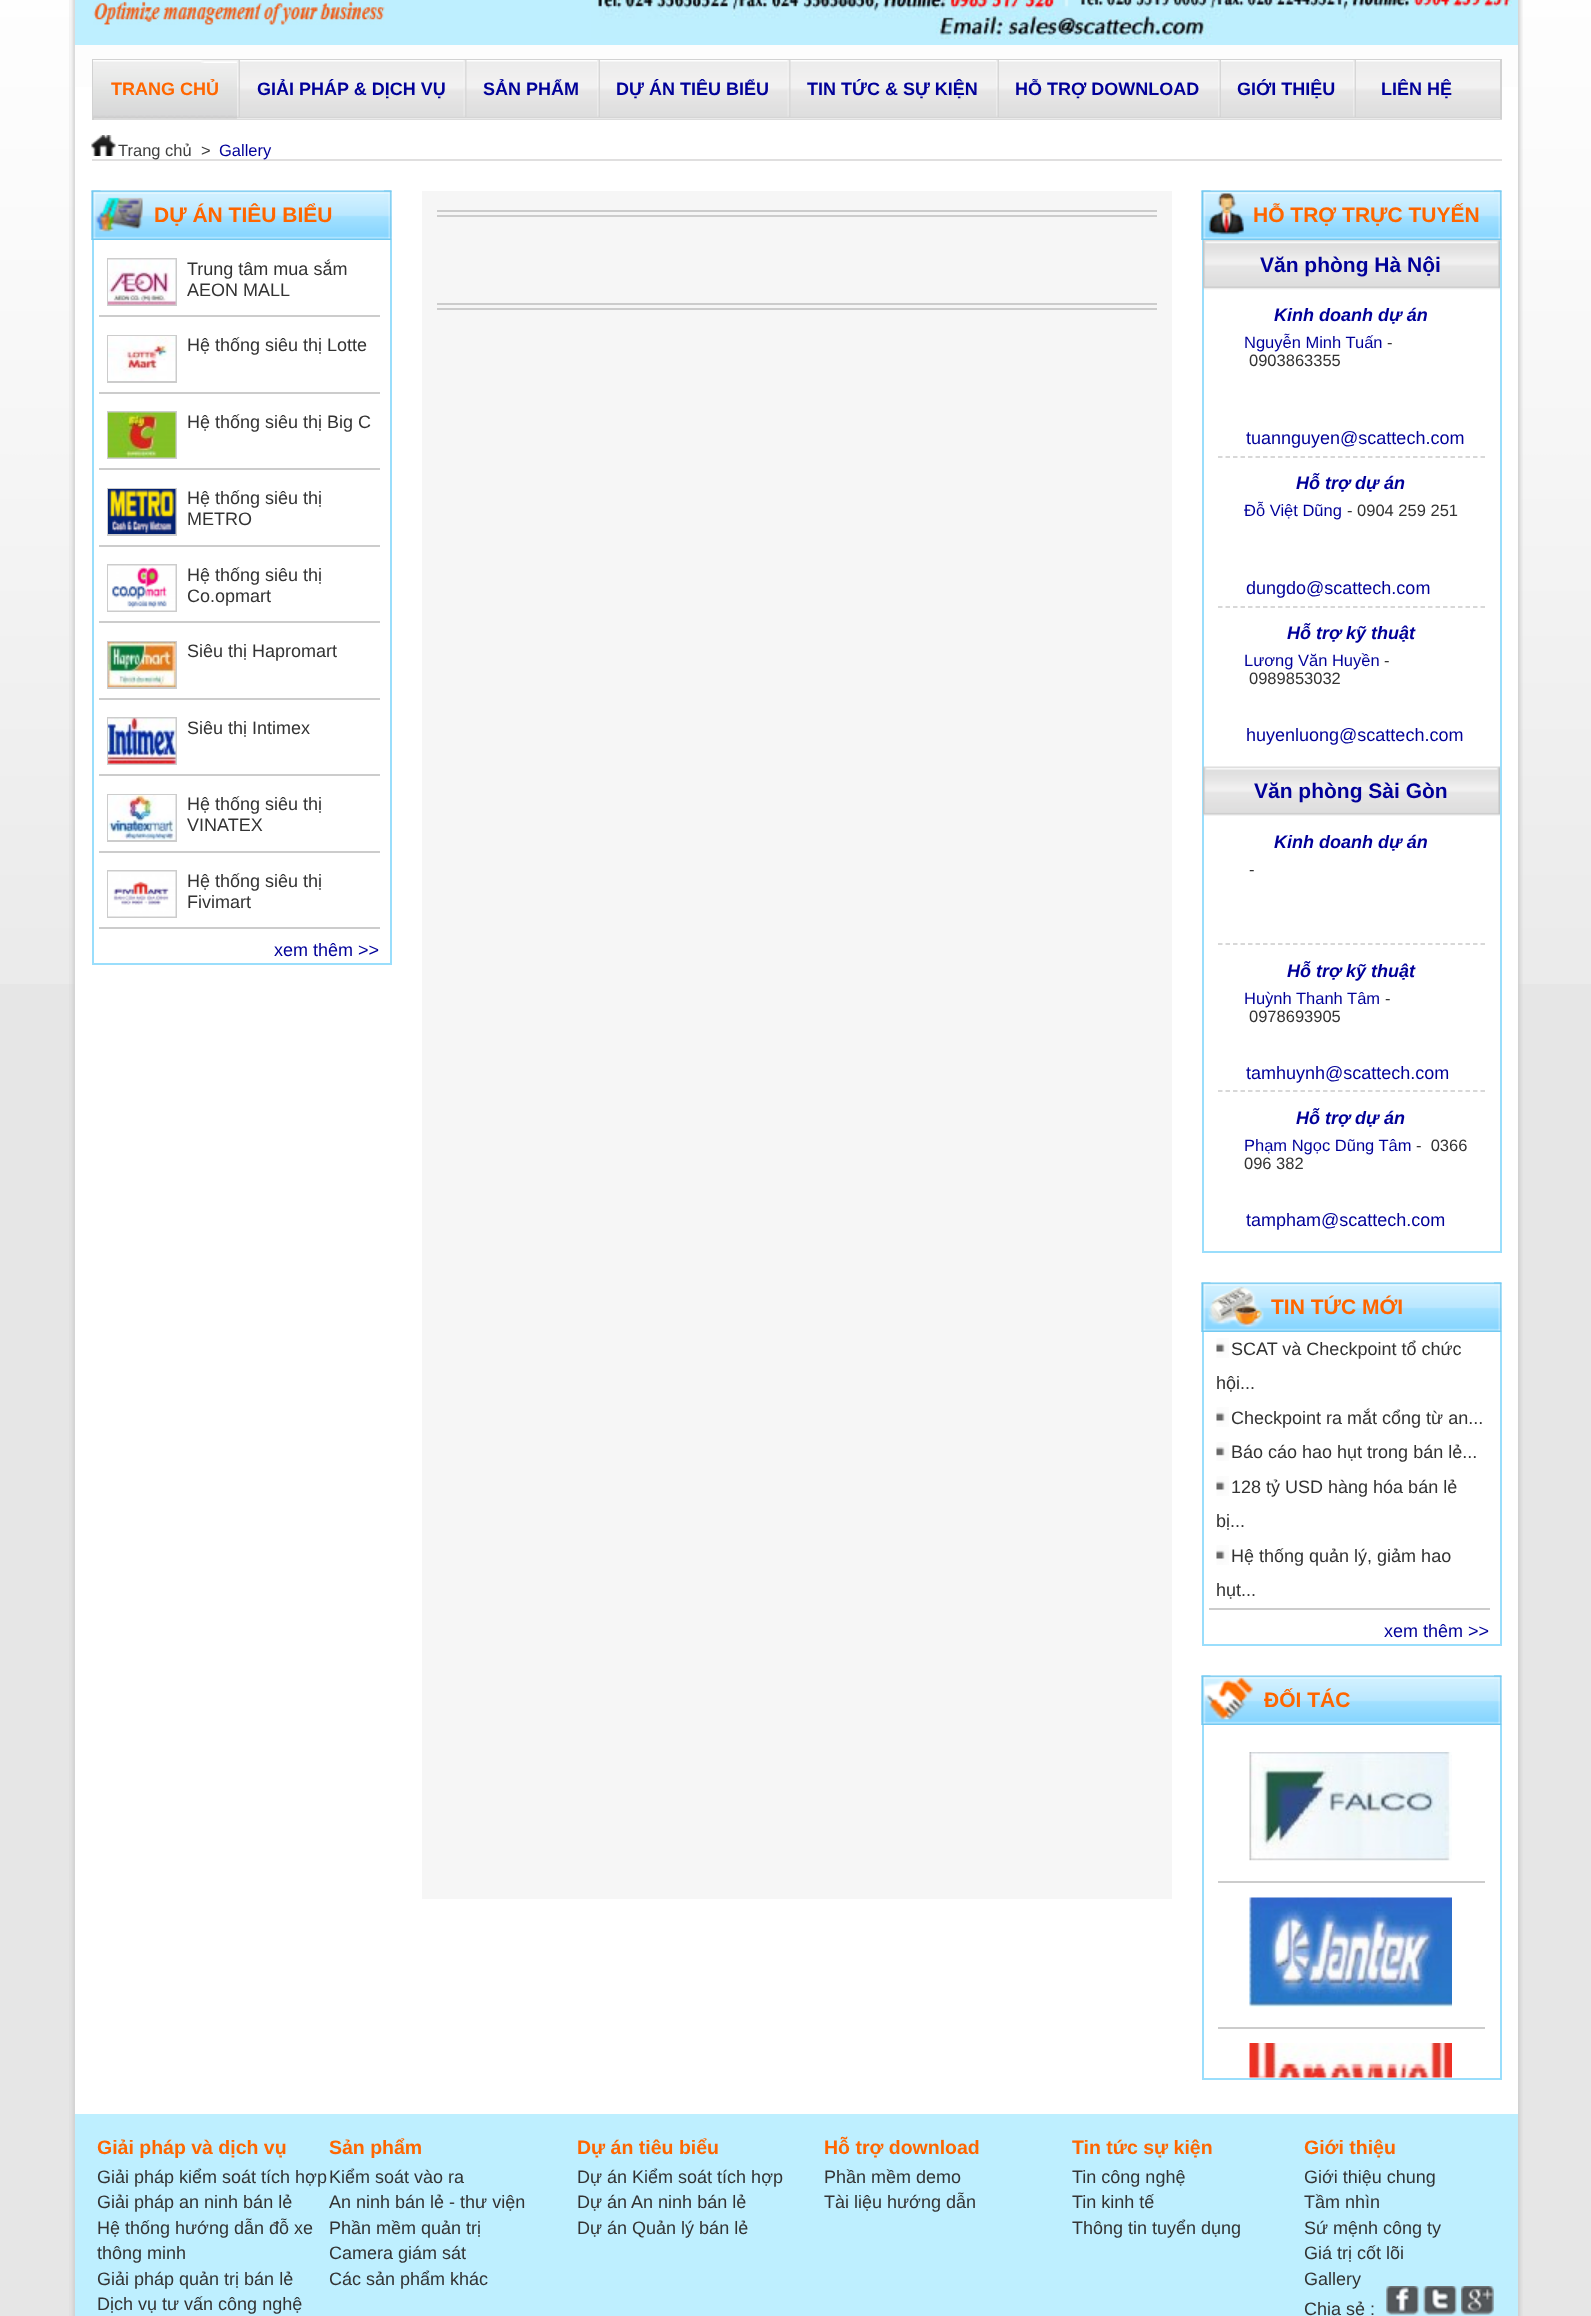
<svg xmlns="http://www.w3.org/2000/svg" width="1591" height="2316">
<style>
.a{font:bold 18px Liberation Sans;fill:#f60}
.b{font:bold 18px Liberation Sans;fill:#009}
.c{font:16.5px Liberation Sans;fill:#3f3f3f}
.d{font:16.5px Liberation Sans;fill:#009}
.e{font:bold 21px Liberation Sans;fill:#f60}
.f{font:18px Liberation Sans;fill:#333}
.g{font:18px Liberation Sans;fill:#009}
.h{font:bold 21px Liberation Sans;fill:#009}
.i{font:italic bold 18px Liberation Sans;fill:#009}
.j{font:16.5px Liberation Sans;fill:#333}
.k{font:bold 19.5px Liberation Sans;fill:#f60}
</style>
<rect width="100%" height="100%" fill="#e6e6e6"/>
<image href="1.png" x="0" y="0" width="1591" height="984"/>
<image href="2.png" x="69" y="0" width="6" height="2316"/>
<image href="3.png" x="1518" y="0" width="5" height="2316"/>
<path fill="#beefff" d="M75 0h1443v45H75z"/>
<image href="4.png" x="93" y="1" width="292" height="24"/>
<image href="5.png" x="591" y="0" width="921" height="39"/>
<path fill="#fff" d="M75 87h1443v2027H75z"/>
<path fill="#d2d2d2" d="M92 59h1410v1H92z"/>
<path fill="#d2d2d2" d="M1500 59h2v61H1500z"/>
<path fill="#dcdcdc" d="M92 119h1410v1H92z"/>
<path fill="#d2d2d2" d="M92 59h2v61H92z"/>
<image href="6.png" x="93" y="60" width="1407" height="59"/>
<image href="8.png" x="93" y="60" width="144" height="59"/>
<image href="7.png" x="201" y="60" width="36" height="3"/>
<image href="9.png" x="237" y="60" width="3" height="57"/>
<image href="10.png" x="463" y="60" width="4" height="57"/>
<image href="11.png" x="597" y="60" width="3" height="57"/>
<image href="10.png" x="787" y="60" width="4" height="57"/>
<image href="9.png" x="996" y="60" width="3" height="57"/>
<image href="11.png" x="1218" y="60" width="3" height="57"/>
<image href="11.png" x="1353" y="60" width="3" height="57"/>
<path fill="#e0dfdf" d="M92 159h1410v2H92z"/>
<image href="12.png" x="91" y="135" width="25" height="21"/>
<image href="13.png" x="91" y="190" width="301" height="50"/>
<image href="14.png" x="91" y="190" width="10" height="50"/>
<image href="15.png" x="384" y="190" width="8" height="50"/>
<image href="16.png" x="95" y="197" width="48" height="35"/>
<path fill="#9adefc" d="M390 240h2v725H390z"/>
<path fill="#9adefc" d="M92 963h300v2H92z"/>
<path fill="#9adefc" d="M92 240h2v725H92z"/>
<path fill="none" stroke="#ccc" stroke-width="2" d="M108 259h68v46H108z"/>
<image href="17.png" x="108" y="259" width="68" height="46"/>
<path fill="#ccc" d="M99 315h281v2H99z"/>
<path fill="none" stroke="#ccc" stroke-width="2" d="M108 336h68v46H108z"/>
<image href="18.png" x="108" y="336" width="68" height="45"/>
<path fill="#ccc" d="M99 392h281v2H99z"/>
<path fill="none" stroke="#ccc" stroke-width="2" d="M108 412h68v46H108z"/>
<image href="19.png" x="108" y="412" width="68" height="46"/>
<path fill="#ccc" d="M99 468h281v2H99z"/>
<path fill="none" stroke="#ccc" stroke-width="2" d="M108 489h68v46H108z"/>
<image href="20.png" x="108" y="489" width="68" height="45"/>
<path fill="#ccc" d="M99 545h281v2H99z"/>
<path fill="none" stroke="#ccc" stroke-width="2" d="M108 565h68v46H108z"/>
<image href="21.png" x="108" y="565" width="68" height="46"/>
<path fill="#ccc" d="M99 621h281v2H99z"/>
<path fill="none" stroke="#ccc" stroke-width="2" d="M108 642h68v46H108z"/>
<image href="22.png" x="108" y="642" width="68" height="45"/>
<path fill="#ccc" d="M99 698h281v2H99z"/>
<path fill="none" stroke="#ccc" stroke-width="2" d="M108 718h68v46H108z"/>
<image href="23.png" x="108" y="718" width="68" height="46"/>
<path fill="#ccc" d="M99 774h281v2H99z"/>
<path fill="none" stroke="#ccc" stroke-width="2" d="M108 795h68v46H108z"/>
<image href="24.png" x="108" y="795" width="68" height="45"/>
<path fill="#ccc" d="M99 851h281v2H99z"/>
<path fill="none" stroke="#ccc" stroke-width="2" d="M108 871h68v46H108z"/>
<image href="25.png" x="108" y="871" width="68" height="46"/>
<path fill="#ccc" d="M99 927h281v2H99z"/>
<path fill="#f6f6f6" d="M422 191h750v1708H422z"/>
<path fill="#ccc" d="M437 210h720v2H437z"/>
<path fill="#ccc" d="M437 215h720v2H437z"/>
<path fill="#ccc" d="M437 303h720v2H437z"/>
<path fill="#ccc" d="M437 308h720v2H437z"/>
<image href="26.png" x="1201" y="190" width="301" height="50"/>
<image href="27.png" x="1201" y="190" width="10" height="50"/>
<image href="15.png" x="1494" y="190" width="8" height="50"/>
<image href="28.png" x="1208" y="193" width="36" height="42"/>
<path fill="#9adefc" d="M1500 240h2v1013H1500z"/>
<path fill="#9adefc" d="M1202 1251h300v2H1202z"/>
<path fill="#9adefc" d="M1202 240h2v1013H1202z"/>
<image href="29.png" x="1203" y="240" width="297" height="50"/>
<path fill="none" stroke="#ccc" stroke-width="1.5" stroke-dasharray="4.5 3" d="M1218 457h267"/>
<path fill="none" stroke="#ccc" stroke-width="1.5" stroke-dasharray="4.5 3" d="M1218 607h267"/>
<image href="30.png" x="1203" y="766" width="297" height="50"/>
<path fill="none" stroke="#ccc" stroke-width="1.5" stroke-dasharray="4.5 3" d="M1218 944h267"/>
<path fill="none" stroke="#ccc" stroke-width="1.5" stroke-dasharray="4.5 3" d="M1218 1091h267"/>
<image href="31.png" x="1201" y="1282" width="301" height="50"/>
<image href="27.png" x="1201" y="1282" width="10" height="50"/>
<image href="15.png" x="1494" y="1282" width="8" height="50"/>
<image href="32.png" x="1207" y="1286" width="57" height="42"/>
<path fill="#9adefc" d="M1500 1332h2v314H1500z"/>
<path fill="#9adefc" d="M1202 1644h300v2H1202z"/>
<path fill="#9adefc" d="M1202 1332h2v314H1202z"/>
<image href="33.png" x="1216" y="1338" width="13" height="20"/>
<image href="33.png" x="1216" y="1407" width="13" height="20"/>
<image href="34.png" x="1216" y="1442" width="13" height="19"/>
<image href="33.png" x="1216" y="1476" width="13" height="20"/>
<image href="33.png" x="1216" y="1545" width="13" height="20"/>
<path fill="#ccc" d="M1209 1608h281v2H1209z"/>
<image href="35.png" x="1201" y="1675" width="301" height="50"/>
<image href="27.png" x="1201" y="1675" width="10" height="50"/>
<image href="15.png" x="1494" y="1675" width="8" height="50"/>
<image href="36.png" x="1204" y="1676" width="50" height="44"/>
<path fill="#9adefc" d="M1500 1725h2v354H1500z"/>
<path fill="#9adefc" d="M1202 2078h300v2H1202z"/>
<path fill="#9adefc" d="M1202 1725h2v354H1202z"/>
<path fill="#ccc" d="M1218 1881h267v2H1218z"/>
<image href="37.png" x="1249" y="1752" width="203" height="109"/>
<path fill="#ccc" d="M1218 2027h267v2H1218z"/>
<image href="38.png" x="1249" y="1897" width="203" height="110"/>
<image href="39.png" x="1249" y="2043" width="203" height="35"/>
<path fill="#beefff" d="M75 2114h1443v202H75z"/>
<image href="40.png" x="1386" y="2286" width="33" height="29"/>
<image href="41.png" x="1423" y="2286" width="34" height="29"/>
<image href="42.png" x="1461" y="2286" width="33" height="29"/>
<text class="a" x="111" y="95">TRANG CHỦ</text>
<text class="b" x="257" y="95">GIẢI PHÁP &amp; DỊCH VỤ</text>
<text class="b" x="483" y="95">SẢN PHẨM</text>
<text class="b" x="616" y="95">DỰ ÁN TIÊU BIỂU</text>
<text class="b" x="807" y="95">TIN TỨC &amp; SỰ KIỆN</text>
<text class="b" x="1015" y="95">HỖ TRỢ DOWNLOAD</text>
<text class="b" x="1237" y="95">GIỚI THIỆU</text>
<text class="b" x="1381" y="95">LIÊN HỆ</text>
<text class="c" x="118" y="156">Trang chủ</text>
<text class="c" x="201" y="156">&gt;</text>
<text class="d" x="219" y="156">Gallery</text>
<text class="e" x="154" y="222">DỰ ÁN TIÊU BIỂU</text>
<text class="f" x="187" y="275">Trung tâm mua sắm</text>
<text class="f" x="187" y="296">AEON MALL</text>
<text class="f" x="187" y="351">Hệ thống siêu thị Lotte</text>
<text class="f" x="187" y="428">Hệ thống siêu thị Big C</text>
<text class="f" x="187" y="504">Hệ thống siêu thị</text>
<text class="f" x="187" y="525">METRO</text>
<text class="f" x="187" y="581">Hệ thống siêu thị</text>
<text class="f" x="187" y="602">Co.opmart</text>
<text class="f" x="187" y="657">Siêu thị Hapromart</text>
<text class="f" x="187" y="734">Siêu thị Intimex</text>
<text class="f" x="187" y="810">Hệ thống siêu thị</text>
<text class="f" x="187" y="831">VINATEX</text>
<text class="f" x="187" y="887">Hệ thống siêu thị</text>
<text class="f" x="187" y="908">Fivimart</text>
<text class="g" x="274" y="956">xem thêm &gt;&gt;</text>
<text class="e" x="1253" y="222">HỖ TRỢ TRỰC TUYẾN</text>
<text class="h" x="1260" y="272">Văn phòng Hà Nội</text>
<text class="i" x="1274" y="321">Kinh doanh dự án</text>
<text class="d" x="1244" y="348">Nguyễn Minh Tuấn</text>
<text class="j" x="1387" y="348">-</text>
<text class="j" x="1249" y="366">0903863355</text>
<text class="g" x="1246" y="444">tuannguyen@scattech.com</text>
<text class="i" x="1296" y="489">Hỗ trợ dự án</text>
<text class="d" x="1244" y="516">Đỗ Việt Dũng</text>
<text class="j" x="1347" y="516">- 0904 259 251</text>
<text class="g" x="1246" y="594">dungdo@scattech.com</text>
<text class="i" x="1287" y="639">Hỗ trợ kỹ thuật</text>
<text class="d" x="1244" y="666">Lương Văn Huyền</text>
<text class="j" x="1384" y="666">-</text>
<text class="j" x="1249" y="684">0989853032</text>
<text class="g" x="1246" y="741">huyenluong@scattech.com</text>
<text class="h" x="1254" y="798">Văn phòng Sài Gòn</text>
<text class="i" x="1274" y="848">Kinh doanh dự án</text>
<text class="j" x="1249" y="875">-</text>
<text class="i" x="1287" y="977">Hỗ trợ kỹ thuật</text>
<text class="d" x="1244" y="1004">Huỳnh Thanh Tâm</text>
<text class="j" x="1385" y="1004">-</text>
<text class="j" x="1249" y="1022">0978693905</text>
<text class="g" x="1246" y="1079">tamhuynh@scattech.com</text>
<text class="i" x="1296" y="1124">Hỗ trợ dự án</text>
<text class="d" x="1244" y="1151">Phạm Ngọc Dũng Tâm</text>
<text class="j" xml:space="preserve" x="1416" y="1151">-  0366</text>
<text class="j" x="1244" y="1169">096 382</text>
<text class="g" x="1246" y="1226">tampham@scattech.com</text>
<text class="e" x="1271" y="1314">TIN TỨC MỚI</text>
<text class="f" x="1231" y="1355">SCAT và Checkpoint tổ chức</text>
<text class="f" x="1216" y="1389">hội...</text>
<text class="f" x="1231" y="1424">Checkpoint ra mắt cổng từ an...</text>
<text class="f" x="1231" y="1458">Báo cáo hao hụt trong bán lẻ...</text>
<text class="f" x="1231" y="1493">128 tỷ USD hàng hóa bán lẻ</text>
<text class="f" x="1216" y="1527">bị...</text>
<text class="f" x="1231" y="1562">Hệ thống quản lý, giảm hao</text>
<text class="f" x="1216" y="1596">hụt...</text>
<text class="g" x="1384" y="1637">xem thêm &gt;&gt;</text>
<text class="e" x="1264" y="1707">ĐỐI TÁC</text>
<text class="k" x="97" y="2154">Giải pháp và dịch vụ</text>
<text class="f" x="97" y="2183">Giải pháp kiểm soát tích hợp</text>
<text class="f" x="97" y="2208">Giải pháp an ninh bán lẻ</text>
<text class="f" x="97" y="2234">Hệ thống hướng dẫn đỗ xe</text>
<text class="f" x="97" y="2259">thông minh</text>
<text class="f" x="97" y="2285">Giải pháp quản trị bán lẻ</text>
<text class="f" x="97" y="2310">Dịch vụ tư vấn công nghệ</text>
<text class="k" x="329" y="2154">Sản phẩm</text>
<text class="f" x="329" y="2183">Kiểm soát vào ra</text>
<text class="f" x="329" y="2208">An ninh bán lẻ - thư viện</text>
<text class="f" x="329" y="2234">Phần mềm quản trị</text>
<text class="f" x="329" y="2259">Camera giám sát</text>
<text class="f" x="329" y="2285">Các sản phẩm khác</text>
<text class="k" x="577" y="2154">Dự án tiêu biểu</text>
<text class="f" x="577" y="2183">Dự án Kiểm soát tích hợp</text>
<text class="f" x="577" y="2208">Dự án An ninh bán lẻ</text>
<text class="f" x="577" y="2234">Dự án Quản lý bán lẻ</text>
<text class="k" x="824" y="2154">Hỗ trợ download</text>
<text class="f" x="824" y="2183">Phần mềm demo</text>
<text class="f" x="824" y="2208">Tài liệu hướng dẫn</text>
<text class="k" x="1072" y="2154">Tin tức sự kiện</text>
<text class="f" x="1072" y="2183">Tin công nghệ</text>
<text class="f" x="1072" y="2208">Tin kinh tế</text>
<text class="f" x="1072" y="2234">Thông tin tuyển dụng</text>
<text class="k" x="1304" y="2154">Giới thiệu</text>
<text class="f" x="1304" y="2183">Giới thiệu chung</text>
<text class="f" x="1304" y="2208">Tầm nhìn</text>
<text class="f" x="1304" y="2234">Sứ mệnh công ty</text>
<text class="f" x="1304" y="2259">Giá trị cốt lõi</text>
<text class="f" x="1304" y="2285">Gallery</text>
<text class="f" x="1304" y="2315">Chia sẻ :</text>
</svg>
